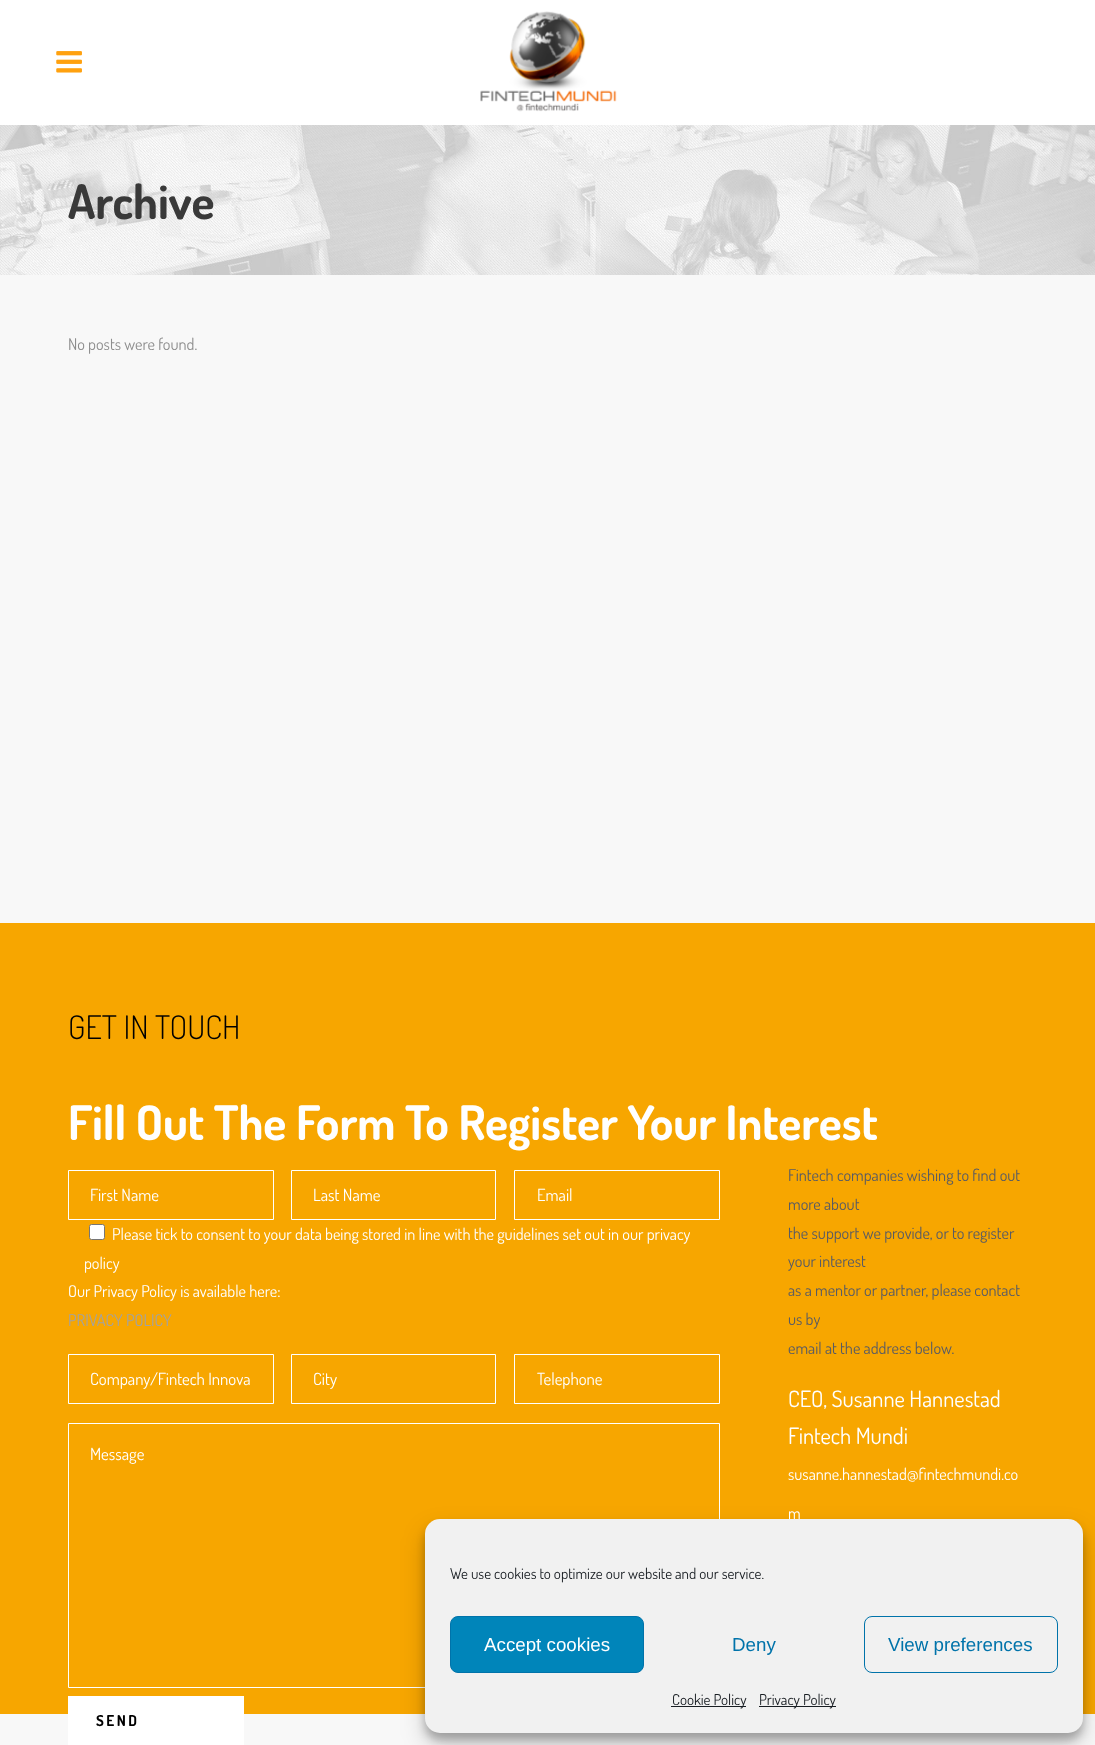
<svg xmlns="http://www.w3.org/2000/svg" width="1095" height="1745">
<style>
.a{font:bold 47.5px Dosis;fill:#393939}
.b{font:16.25px Dosis;fill:#8d8d8d}
.c{font:300 32.5px Dosis;fill:#000}
.d{font:bold 47.5px Dosis;fill:#fff}
.e{font:16.75px Dosis;fill:#fff}
.f{font:16.25px Dosis;fill:#fff}
.g{font:16.25px Dosis;fill:#a2a2a2}
.h{font:bold 15px Dosis;letter-spacing:2.5px;fill:#000}
.i{font:16.25px Dosis;fill:#585b64}
.j{font:22.5px Dosis;fill:#fff}
.k{font:15px Dosis;fill:#191e23}
.l{font:18.75px Liberation Sans;fill:#fff}
.m{font:18.75px Liberation Sans;fill:#0073aa}
</style>
<rect width="100%" height="100%" fill="#f8f8f8"/>
<path fill="#fff" d="M0 0h1095v125H0z"/>
<image href="1.png" x="56" y="51" width="26" height="22"/>
<image href="2.png" x="480" y="11" width="137" height="101"/>
<image href="3.png" x="0" y="125" width="1095" height="150"/>
<path fill="#f7a600" d="M0 923h1095v791H0z"/>
<path fill="none" stroke="#fff" d="M68.5 1170.5h205v49H68.5z"/>
<path fill="none" stroke="#fff" d="M291.5 1170.5h204v49H291.5z"/>
<path fill="none" stroke="#fff" d="M514.5 1170.5h205v49H514.5z"/>
<rect fill="#fff" stroke="#767676" x="89.5" y="1224.5" width="15" height="15" rx="2"/>
<path fill="none" stroke="#fff" d="M68.5 1354.5h205v49H68.5z"/>
<path fill="none" stroke="#fff" d="M291.5 1354.5h204v49H291.5z"/>
<path fill="none" stroke="#fff" d="M514.5 1354.5h205v49H514.5z"/>
<path fill="none" stroke="#fff" d="M68.5 1423.5h651v264H68.5z"/>
<path fill="#fff" d="M68 1696h176v49H68z"/>
<rect fill="#0000003b" filter="blur(4px)" x="425" y="1526" width="658" height="214" rx="15"/>
<rect fill="#00000030" filter="blur(12.5px)" x="425" y="1531" width="658" height="214" rx="15"/>
<rect fill="#f1f1f1" x="425" y="1519" width="658" height="214" rx="15"/>
<rect fill="#0085ba" stroke="#0073aa" x="450.5" y="1616.5" width="193" height="56" rx="7.5"/>
<rect fill="none" stroke="#0073aa" x="864.5" y="1616.5" width="193" height="56" rx="7.5"/>
<path fill="#191e23" d="M671 1706h75v1H671z"/>
<path fill="#191e23" d="M759 1706h77v1H759z"/>
<text class="a" x="68" y="219">Archive</text>
<text class="b" x="68" y="350">No posts were found.</text>
<text class="c" x="68" y="1039">GET IN TOUCH</text>
<text class="d" x="68" y="1140">Fill Out The Form To Register Your Interest</text>
<text class="e" x="90" y="1201">First Name</text>
<text class="e" x="313" y="1201">Last Name</text>
<text class="e" x="537" y="1201">Email</text>
<text class="f" x="112" y="1240">Please tick to consent to your data being stored in line with the guidelines set out in our privacy</text>
<text class="f" x="84" y="1269">policy</text>
<text class="f" x="68" y="1297">Our Privacy Policy is available here:</text>
<text class="g" x="68" y="1326">PRIVACY POLICY</text>
<text class="e" x="90" y="1385">Company/Fintech Innova</text>
<text class="e" x="313" y="1385">City</text>
<text class="e" x="537" y="1385">Telephone</text>
<text class="e" x="90" y="1460">Message</text>
<text class="h" x="96" y="1726">SEND</text>
<text class="i" x="788" y="1181">Fintech companies wishing to find out</text>
<text class="i" x="788" y="1210">more about</text>
<text class="i" x="788" y="1239">the support we provide, or to register</text>
<text class="i" x="788" y="1267">your interest</text>
<text class="i" x="788" y="1296">as a mentor or partner, please contact</text>
<text class="i" x="788" y="1325">us by</text>
<text class="i" x="788" y="1354">email at the address below.</text>
<text class="j" x="788" y="1407">CEO, Susanne Hannestad</text>
<text class="j" x="788" y="1444">Fintech Mundi</text>
<text class="f" x="788" y="1480">susanne.hannestad@fintechmundi.co</text>
<text class="f" x="788" y="1519">m</text>
<text class="k" x="450" y="1579">We use cookies to optimize our website and our service.</text>
<text class="l" x="484" y="1651">Accept cookies</text>
<text class="m" x="732" y="1651">Deny</text>
<text class="m" x="888" y="1651">View preferences</text>
<text class="k" x="672" y="1705">Cookie Policy</text>
<text class="k" x="759" y="1705">Privacy Policy</text>
</svg>
